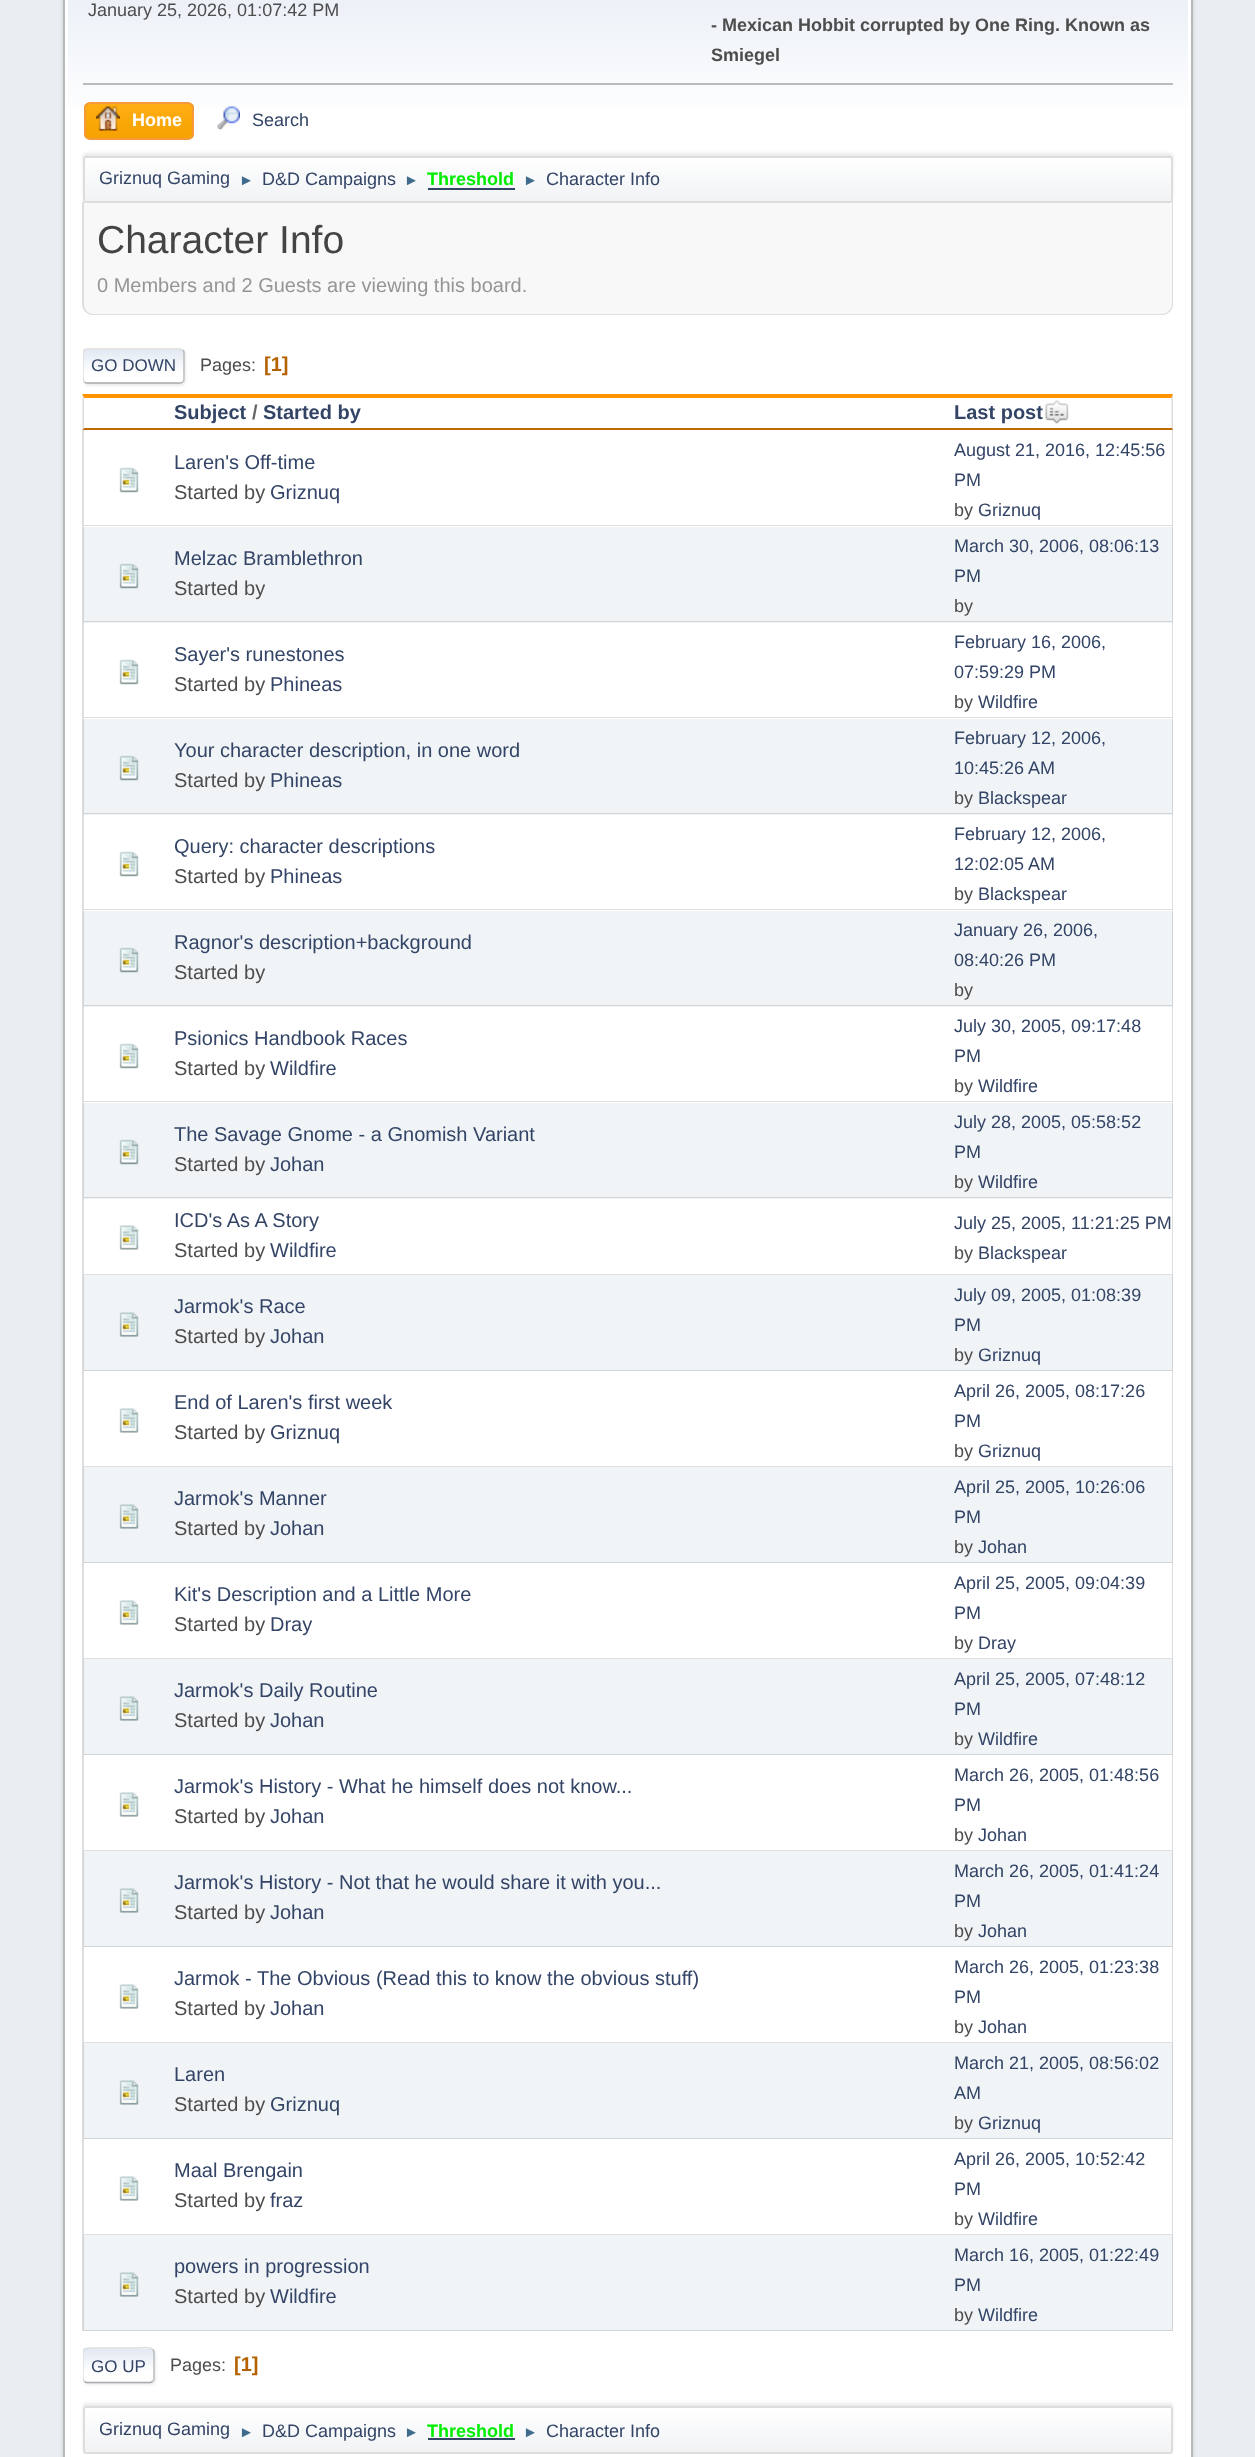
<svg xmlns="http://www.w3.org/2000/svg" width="1255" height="2457">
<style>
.a{font:18px Liberation Sans;fill:#4d4d4d}
.b{font:bold 18px Liberation Sans;fill:#4d4d4d}
.c{font:bold 18px Liberation Sans;fill:#fff}
.d{font:18px Liberation Sans;fill:#346}
.e{font:15px Liberation Sans;fill:#3f6b8c}
.f{font:bold 18px Liberation Sans;fill:#00ed00}
.g{font:39px Liberation Sans;fill:#444}
.h{font:20px Liberation Sans;fill:#959595}
.i{font:17px Liberation Sans;fill:#346}
.j{font:bold 20px Liberation Sans;fill:#b46100}
.k{font:bold 20px Liberation Sans;fill:#346}
.l{font:bold 20px Liberation Sans;fill:#666}
.m{font:20px Liberation Sans;fill:#346}
.n{font:20px Liberation Sans;fill:#4d4d4d}
</style>
<defs>
<linearGradient id="g1" gradientUnits="userSpaceOnUse" x1="628" y1="-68" x2="628" y2="206"><stop offset="0" stop-color="#e2e9f3"/><stop offset="0.7" stop-color="#fff"/></linearGradient>
<clipPath id="clip1"><rect x="84" y="102" width="110" height="38" rx="6"/></clipPath>
<linearGradient id="g2" gradientUnits="userSpaceOnUse" x1="139" y1="104" x2="139" y2="138"><stop offset="0" stop-color="#ffae14"/><stop offset="1" stop-color="#f5a100"/></linearGradient>
<clipPath id="clip2"><rect x="83" y="156" width="1090" height="47" rx="3"/></clipPath>
<linearGradient id="g3" gradientUnits="userSpaceOnUse" x1="628" y1="157" x2="628" y2="201"><stop offset="0" stop-color="#fff"/><stop offset="0.95" stop-color="#f1f3f5"/></linearGradient>
<clipPath id="clip3"><rect x="83" y="348" width="102" height="36" rx="5"/></clipPath>
<linearGradient id="g4" gradientUnits="userSpaceOnUse" x1="134" y1="350" x2="134" y2="383"><stop offset="0" stop-color="#e2e9f3"/><stop offset="0.7" stop-color="#fff"/></linearGradient>
<linearGradient id="g5" gradientUnits="userSpaceOnUse" x1="134" y1="383" x2="134" y2="416"><stop offset="0" stop-color="#e2e9f3"/><stop offset="0.7" stop-color="#fff"/></linearGradient>
<clipPath id="clip4"><path d="M83 338h1090v57H83z"/></clipPath>
<clipPath id="clip5"><rect x="83" y="2348" width="72" height="36" rx="5"/></clipPath>
<linearGradient id="g6" gradientUnits="userSpaceOnUse" x1="119" y1="2349" x2="119" y2="2382"><stop offset="0" stop-color="#e2e9f3"/><stop offset="0.7" stop-color="#fff"/></linearGradient>
<linearGradient id="g7" gradientUnits="userSpaceOnUse" x1="119" y1="2382" x2="119" y2="2415"><stop offset="0" stop-color="#e2e9f3"/><stop offset="0.7" stop-color="#fff"/></linearGradient>
<clipPath id="clip6"><path d="M83 2337h1090v57H83z"/></clipPath>
<clipPath id="clip7"><rect x="83" y="2406" width="1090" height="48" rx="3"/></clipPath>
<linearGradient id="g8" gradientUnits="userSpaceOnUse" x1="628" y1="2408" x2="628" y2="2453"><stop offset="0" stop-color="#fff"/><stop offset="0.95" stop-color="#f1f3f5"/></linearGradient>
</defs>
<rect width="100%" height="100%" fill="#e9eef2"/>
<rect fill="#00000024" filter="blur(2px)" x="63" y="-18" width="1130" height="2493" rx="12"/>
<path fill="#fff" stroke="#b8b8b8" stroke-width="2" d="M64 -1h1128v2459H64z"/>
<path fill="url(#g1)" d="M68 0h1120v107H68z"/>
<path fill="#bbb" d="M83 83h1090v2H83z"/>
<g clip-path="url(#clip1)">
<path fill="url(#g2)" d="M84 104h110v34H84z"/>
</g>
<rect fill="none" stroke="#f49a3a" stroke-width="2" x="85" y="103" width="108" height="36" rx="5"/>
<image href="1.png" x="96" y="106" width="24" height="25"/>
<image href="2.png" x="217" y="106" width="23" height="24"/>
<rect fill="#00000014" filter="blur(1.5px)" x="83" y="153" width="1090" height="47" rx="3"/>
<g clip-path="url(#clip2)">
<path fill="url(#g3)" d="M83 158h1090v43H83z"/>
</g>
<rect fill="none" stroke="#ddd" stroke-width="2" x="84" y="157" width="1088" height="45" rx="2"/>
<path fill="#346" d="M428 188h87v2H428z"/>
<path fill="#f8f8f8" d="M83 203h1090v101c0 6-5 11-11 11h-1068c-6 0-11-5-11-11z"/>
<path fill="#ddd" fill-rule="evenodd" d="M82 202h1091v102c0 6-5 11-11 11h-1069c-6 0-11-5-11-11zm2 0h1088v102c0 5-5 10-10 10h-1069c-5 0-9-5-9-10z"/>
<rect fill="#dddddd91" filter="blur(1px)" x="84" y="350" width="102" height="36" rx="5"/>
<rect fill="#fff" x="83" y="348" width="102" height="36" rx="5"/>
<g clip-path="url(#clip3)">
<path fill="url(#g4)" d="M83 350h102v33H83z"/>
<path fill="url(#g5)" d="M83 383h102v1H83z"/>
</g>
<path fill="none" stroke="#bbb" stroke-width="1.5" d="M182.5 350c1 .5 1.5 1.5 1.5 2.5v27c0 1-.5 2-1.5 2.5"/>
<path fill="none" stroke="#aaa" stroke-width="1.5" d="M182.5 382c-.5 1-1.5 1-2.5 1h-93c-1 0-2 0-2.5-1"/>
<g clip-path="url(#clip4)">
<path fill="none" stroke="#ddd" stroke-width="1.5" d="M84.5 382c-2.5-2.5-1.5-8.5-1.5-11.5v-13.5c0-3-.5-8 4-8h93l2.5 1"/>
</g>
<path fill="#ff9400" d="M82 394h1091l-1 4h-1088z"/>
<path fill="#ddd" d="M1173 394.5v36l-1.5-3v-30z"/>
<path fill="#bf6900" d="M1173 430h-1091l2-2h1088z"/>
<path fill="#ddd" d="M82.5 430.5v-36l1.5 3v30z"/>
<image href="3.png" x="1045" y="400" width="24" height="24"/>
<path fill="#dcdcdc" d="M1173 430v96l-1-1v-95z"/>
<path fill="#00000021" d="M1173 526h-1091l2-1h1088z"/>
<path fill="#00000021" d="M82 526v-96h2v95z"/>
<image href="4.png" x="119" y="467" width="20" height="26"/>
<path fill="#f0f4f7" d="M83 527h1090v96H83z"/>
<path fill="#00000021" d="M1173 526v96l-1-1v-95z"/>
<path fill="#00000021" d="M1173 622h-1091l2-1h1088z"/>
<path fill="#00000021" d="M82 622v-96h2v95z"/>
<image href="5.png" x="119" y="563" width="20" height="26"/>
<path fill="#00000021" d="M1173 622v96l-1-1v-95z"/>
<path fill="#00000021" d="M1173 718h-1091l2-1h1088z"/>
<path fill="#00000021" d="M82 718v-96h2v95z"/>
<image href="4.png" x="119" y="659" width="20" height="26"/>
<path fill="#f0f4f7" d="M83 719h1090v96H83z"/>
<path fill="#00000021" d="M1173 718v96l-1-1v-95z"/>
<path fill="#00000021" d="M1173 814h-1091l2-1h1088z"/>
<path fill="#00000021" d="M82 814v-96h2v95z"/>
<image href="5.png" x="119" y="755" width="20" height="26"/>
<path fill="#00000021" d="M1173 814v96l-1-1v-95z"/>
<path fill="#00000021" d="M1173 910h-1091l2-1h1088z"/>
<path fill="#00000021" d="M82 910v-96h2v95z"/>
<image href="4.png" x="119" y="851" width="20" height="26"/>
<path fill="#f0f4f7" d="M83 911h1090v96H83z"/>
<path fill="#00000021" d="M1173 910v96l-1-1v-95z"/>
<path fill="#00000021" d="M1173 1006h-1091l2-1h1088z"/>
<path fill="#00000021" d="M82 1006v-96h2v95z"/>
<image href="5.png" x="119" y="947" width="20" height="26"/>
<path fill="#00000021" d="M1173 1006v96l-1-1v-95z"/>
<path fill="#00000021" d="M1173 1102h-1091l2-1h1088z"/>
<path fill="#00000021" d="M82 1102v-96h2v95z"/>
<image href="4.png" x="119" y="1043" width="20" height="26"/>
<path fill="#f0f4f7" d="M83 1103h1090v96H83z"/>
<path fill="#00000021" d="M1173 1102v96l-1-1v-95z"/>
<path fill="#00000021" d="M1173 1198h-1091l2-1h1088z"/>
<path fill="#00000021" d="M82 1198v-96h2v95z"/>
<image href="5.png" x="119" y="1139" width="20" height="26"/>
<path fill="#00000021" d="M1173 1198v77l-1-1v-76z"/>
<path fill="#00000021" d="M1173 1275h-1091l2-1h1088z"/>
<path fill="#00000021" d="M82 1275v-77h2v76z"/>
<image href="6.png" x="119" y="1225" width="20" height="25"/>
<path fill="#f0f4f7" d="M83 1275h1090v96H83z"/>
<path fill="#d1d4d7" d="M1173 1275v96l-1-1v-95z"/>
<path fill="#00000021" d="M1173 1371h-1091l2-1h1088z"/>
<path fill="#00000021" d="M82 1371v-96h2v95z"/>
<image href="7.png" x="119" y="1312" width="20" height="25"/>
<path fill="#dcdcdc" d="M1173 1371v96l-1-1v-95z"/>
<path fill="#00000021" d="M1173 1467h-1091l2-1h1088z"/>
<path fill="#00000021" d="M82 1467v-96h2v95z"/>
<image href="6.png" x="119" y="1408" width="20" height="25"/>
<path fill="#f0f4f7" d="M83 1467h1090v96H83z"/>
<path fill="#d1d4d7" d="M1173 1467v96l-1-1v-95z"/>
<path fill="#00000021" d="M1173 1563h-1091l2-1h1088z"/>
<path fill="#00000021" d="M82 1563v-96h2v95z"/>
<image href="7.png" x="119" y="1504" width="20" height="25"/>
<path fill="#dcdcdc" d="M1173 1563v96l-1-1v-95z"/>
<path fill="#00000021" d="M1173 1659h-1091l2-1h1088z"/>
<path fill="#00000021" d="M82 1659v-96h2v95z"/>
<image href="6.png" x="119" y="1600" width="20" height="25"/>
<path fill="#f0f4f7" d="M83 1659h1090v96H83z"/>
<path fill="#d1d4d7" d="M1173 1659v96l-1-1v-95z"/>
<path fill="#00000021" d="M1173 1755h-1091l2-1h1088z"/>
<path fill="#00000021" d="M82 1755v-96h2v95z"/>
<image href="7.png" x="119" y="1696" width="20" height="25"/>
<path fill="#dcdcdc" d="M1173 1755v96l-1-1v-95z"/>
<path fill="#00000021" d="M1173 1851h-1091l2-1h1088z"/>
<path fill="#00000021" d="M82 1851v-96h2v95z"/>
<image href="6.png" x="119" y="1792" width="20" height="25"/>
<path fill="#f0f4f7" d="M83 1851h1090v96H83z"/>
<path fill="#d1d4d7" d="M1173 1851v96l-1-1v-95z"/>
<path fill="#00000021" d="M1173 1947h-1091l2-1h1088z"/>
<path fill="#00000021" d="M82 1947v-96h2v95z"/>
<image href="7.png" x="119" y="1888" width="20" height="25"/>
<path fill="#dcdcdc" d="M1173 1947v96l-1-1v-95z"/>
<path fill="#00000021" d="M1173 2043h-1091l2-1h1088z"/>
<path fill="#00000021" d="M82 2043v-96h2v95z"/>
<image href="6.png" x="119" y="1984" width="20" height="25"/>
<path fill="#f0f4f7" d="M83 2043h1090v96H83z"/>
<path fill="#d1d4d7" d="M1173 2043v96l-1-1v-95z"/>
<path fill="#00000021" d="M1173 2139h-1091l2-1h1088z"/>
<path fill="#00000021" d="M82 2139v-96h2v95z"/>
<image href="7.png" x="119" y="2080" width="20" height="25"/>
<path fill="#dcdcdc" d="M1173 2139v96l-1-1v-95z"/>
<path fill="#00000021" d="M1173 2235h-1091l2-1h1088z"/>
<path fill="#00000021" d="M82 2235v-96h2v95z"/>
<image href="6.png" x="119" y="2176" width="20" height="25"/>
<path fill="#f0f4f7" d="M83 2235h1090v96H83z"/>
<path fill="#d1d4d7" d="M1173 2235v96l-1-1v-95z"/>
<path fill="#00000021" d="M1173 2331h-1091l2-1h1088z"/>
<path fill="#00000021" d="M82 2331v-96h2v95z"/>
<image href="7.png" x="119" y="2272" width="20" height="25"/>
<rect fill="#dddddd91" filter="blur(1px)" x="84" y="2349" width="72" height="36" rx="5"/>
<rect fill="#fff" x="83" y="2348" width="72" height="36" rx="5"/>
<g clip-path="url(#clip5)">
<path fill="url(#g6)" d="M83 2349h72v33H83z"/>
<path fill="url(#g7)" d="M83 2382h72v2H83z"/>
</g>
<path fill="none" stroke="#bbb" stroke-width="1.5" d="M152.5 2349.5c1 .5 1.5 1.5 1.5 2.5v27c0 1-.5 2-1.5 2.5"/>
<path fill="none" stroke="#aaa" stroke-width="1.5" d="M152.5 2381.5l-2 1h-64l-2-1"/>
<g clip-path="url(#clip6)">
<path fill="none" stroke="#ddd" stroke-width="1.5" d="M84.5 2381.5c-2.5-2-1.5-13-1.5-16c0-18.5-3-17.5 14.5-17.5h42c0 0 10.5-1.5 13 1.5"/>
</g>
<rect fill="#00000014" filter="blur(1.5px)" x="83" y="2403" width="1090" height="48" rx="3"/>
<g clip-path="url(#clip7)">
<path fill="url(#g8)" d="M83 2408h1090v45H83z"/>
</g>
<rect fill="none" stroke="#ddd" stroke-width="2" x="84" y="2407" width="1088" height="46" rx="2"/>
<path fill="#346" d="M428 2438h87v2H428z"/>
<text class="a" x="88" y="16">January 25, 2026, 01:07:42 PM</text>
<text class="b" x="711" y="31">- Mexican Hobbit corrupted by One Ring. Known as</text>
<text class="b" x="711" y="61">Smiegel</text>
<text class="c" x="132" y="126">Home</text>
<text class="d" x="252" y="126">Search</text>
<text class="d" x="99" y="184">Griznuq Gaming</text>
<text class="e" x="239" y="185">►</text>
<text class="d" x="262" y="185">D&amp;D Campaigns</text>
<text class="e" x="404" y="185">►</text>
<text class="f" x="427" y="185">Threshold</text>
<text class="e" x="523" y="185">►</text>
<text class="d" x="546" y="185">Character Info</text>
<text class="g" x="97" y="253">Character Info</text>
<text class="h" x="97" y="292">0 Members and 2 Guests are viewing this board.</text>
<text class="i" x="91" y="371">GO DOWN</text>
<text class="a" x="200" y="371">Pages:</text>
<text class="j" x="264" y="371">[1]</text>
<text class="k" x="174" y="419">Subject</text>
<text class="l" x="252" y="419">/</text>
<text class="k" x="263" y="419">Started by</text>
<text class="k" x="954" y="419">Last post</text>
<text class="m" x="174" y="469">Laren's Off-time</text>
<text class="n" x="174" y="499">Started by</text>
<text class="m" x="270" y="499">Griznuq</text>
<text class="d" x="954" y="456">August 21, 2016, 12:45:56</text>
<text class="d" x="954" y="486">PM</text>
<text class="a" x="954" y="516">by</text>
<text class="d" x="978" y="516">Griznuq</text>
<text class="m" x="174" y="565">Melzac Bramblethron</text>
<text class="n" x="174" y="595">Started by</text>
<text class="d" x="954" y="552">March 30, 2006, 08:06:13</text>
<text class="d" x="954" y="582">PM</text>
<text class="a" x="954" y="612">by</text>
<text class="m" x="174" y="661">Sayer's runestones</text>
<text class="n" x="174" y="691">Started by</text>
<text class="m" x="270" y="691">Phineas</text>
<text class="d" x="954" y="648">February 16, 2006,</text>
<text class="d" x="954" y="678">07:59:29 PM</text>
<text class="a" x="954" y="708">by</text>
<text class="d" x="978" y="708">Wildfire</text>
<text class="m" x="174" y="757">Your character description, in one word</text>
<text class="n" x="174" y="787">Started by</text>
<text class="m" x="270" y="787">Phineas</text>
<text class="d" x="954" y="744">February 12, 2006,</text>
<text class="d" x="954" y="774">10:45:26 AM</text>
<text class="a" x="954" y="804">by</text>
<text class="d" x="978" y="804">Blackspear</text>
<text class="m" x="174" y="853">Query: character descriptions</text>
<text class="n" x="174" y="883">Started by</text>
<text class="m" x="270" y="883">Phineas</text>
<text class="d" x="954" y="840">February 12, 2006,</text>
<text class="d" x="954" y="870">12:02:05 AM</text>
<text class="a" x="954" y="900">by</text>
<text class="d" x="978" y="900">Blackspear</text>
<text class="m" x="174" y="949">Ragnor's description+background</text>
<text class="n" x="174" y="979">Started by</text>
<text class="d" x="954" y="936">January 26, 2006,</text>
<text class="d" x="954" y="966">08:40:26 PM</text>
<text class="a" x="954" y="996">by</text>
<text class="m" x="174" y="1045">Psionics Handbook Races</text>
<text class="n" x="174" y="1075">Started by</text>
<text class="m" x="270" y="1075">Wildfire</text>
<text class="d" x="954" y="1032">July 30, 2005, 09:17:48</text>
<text class="d" x="954" y="1062">PM</text>
<text class="a" x="954" y="1092">by</text>
<text class="d" x="978" y="1092">Wildfire</text>
<text class="m" x="174" y="1141">The Savage Gnome - a Gnomish Variant</text>
<text class="n" x="174" y="1171">Started by</text>
<text class="m" x="270" y="1171">Johan</text>
<text class="d" x="954" y="1128">July 28, 2005, 05:58:52</text>
<text class="d" x="954" y="1158">PM</text>
<text class="a" x="954" y="1188">by</text>
<text class="d" x="978" y="1188">Wildfire</text>
<text class="m" x="174" y="1227">ICD's As A Story</text>
<text class="n" x="174" y="1257">Started by</text>
<text class="m" x="270" y="1257">Wildfire</text>
<text class="d" x="954" y="1229">July 25, 2005, 11:21:25 PM</text>
<text class="a" x="954" y="1259">by</text>
<text class="d" x="978" y="1259">Blackspear</text>
<text class="m" x="174" y="1313">Jarmok's Race</text>
<text class="n" x="174" y="1343">Started by</text>
<text class="m" x="270" y="1343">Johan</text>
<text class="d" x="954" y="1301">July 09, 2005, 01:08:39</text>
<text class="d" x="954" y="1331">PM</text>
<text class="a" x="954" y="1361">by</text>
<text class="d" x="978" y="1361">Griznuq</text>
<text class="m" x="174" y="1409">End of Laren's first week</text>
<text class="n" x="174" y="1439">Started by</text>
<text class="m" x="270" y="1439">Griznuq</text>
<text class="d" x="954" y="1397">April 26, 2005, 08:17:26</text>
<text class="d" x="954" y="1427">PM</text>
<text class="a" x="954" y="1457">by</text>
<text class="d" x="978" y="1457">Griznuq</text>
<text class="m" x="174" y="1505">Jarmok's Manner</text>
<text class="n" x="174" y="1535">Started by</text>
<text class="m" x="270" y="1535">Johan</text>
<text class="d" x="954" y="1493">April 25, 2005, 10:26:06</text>
<text class="d" x="954" y="1523">PM</text>
<text class="a" x="954" y="1553">by</text>
<text class="d" x="978" y="1553">Johan</text>
<text class="m" x="174" y="1601">Kit's Description and a Little More</text>
<text class="n" x="174" y="1631">Started by</text>
<text class="m" x="270" y="1631">Dray</text>
<text class="d" x="954" y="1589">April 25, 2005, 09:04:39</text>
<text class="d" x="954" y="1619">PM</text>
<text class="a" x="954" y="1649">by</text>
<text class="d" x="978" y="1649">Dray</text>
<text class="m" x="174" y="1697">Jarmok's Daily Routine</text>
<text class="n" x="174" y="1727">Started by</text>
<text class="m" x="270" y="1727">Johan</text>
<text class="d" x="954" y="1685">April 25, 2005, 07:48:12</text>
<text class="d" x="954" y="1715">PM</text>
<text class="a" x="954" y="1745">by</text>
<text class="d" x="978" y="1745">Wildfire</text>
<text class="m" x="174" y="1793">Jarmok's History - What he himself does not know...</text>
<text class="n" x="174" y="1823">Started by</text>
<text class="m" x="270" y="1823">Johan</text>
<text class="d" x="954" y="1781">March 26, 2005, 01:48:56</text>
<text class="d" x="954" y="1811">PM</text>
<text class="a" x="954" y="1841">by</text>
<text class="d" x="978" y="1841">Johan</text>
<text class="m" x="174" y="1889">Jarmok's History - Not that he would share it with you...</text>
<text class="n" x="174" y="1919">Started by</text>
<text class="m" x="270" y="1919">Johan</text>
<text class="d" x="954" y="1877">March 26, 2005, 01:41:24</text>
<text class="d" x="954" y="1907">PM</text>
<text class="a" x="954" y="1937">by</text>
<text class="d" x="978" y="1937">Johan</text>
<text class="m" x="174" y="1985">Jarmok - The Obvious (Read this to know the obvious stuff)</text>
<text class="n" x="174" y="2015">Started by</text>
<text class="m" x="270" y="2015">Johan</text>
<text class="d" x="954" y="1973">March 26, 2005, 01:23:38</text>
<text class="d" x="954" y="2003">PM</text>
<text class="a" x="954" y="2033">by</text>
<text class="d" x="978" y="2033">Johan</text>
<text class="m" x="174" y="2081">Laren</text>
<text class="n" x="174" y="2111">Started by</text>
<text class="m" x="270" y="2111">Griznuq</text>
<text class="d" x="954" y="2069">March 21, 2005, 08:56:02</text>
<text class="d" x="954" y="2099">AM</text>
<text class="a" x="954" y="2129">by</text>
<text class="d" x="978" y="2129">Griznuq</text>
<text class="m" x="174" y="2177">Maal Brengain</text>
<text class="n" x="174" y="2207">Started by</text>
<text class="m" x="270" y="2207">fraz</text>
<text class="d" x="954" y="2165">April 26, 2005, 10:52:42</text>
<text class="d" x="954" y="2195">PM</text>
<text class="a" x="954" y="2225">by</text>
<text class="d" x="978" y="2225">Wildfire</text>
<text class="m" x="174" y="2273">powers in progression</text>
<text class="n" x="174" y="2303">Started by</text>
<text class="m" x="270" y="2303">Wildfire</text>
<text class="d" x="954" y="2261">March 16, 2005, 01:22:49</text>
<text class="d" x="954" y="2291">PM</text>
<text class="a" x="954" y="2321">by</text>
<text class="d" x="978" y="2321">Wildfire</text>
<text class="i" x="91" y="2372">GO UP</text>
<text class="a" x="170" y="2371">Pages:</text>
<text class="j" x="234" y="2371">[1]</text>
<text class="d" x="99" y="2435">Griznuq Gaming</text>
<text class="e" x="239" y="2437">►</text>
<text class="d" x="262" y="2437">D&amp;D Campaigns</text>
<text class="e" x="404" y="2437">►</text>
<text class="f" x="427" y="2437">Threshold</text>
<text class="e" x="523" y="2437">►</text>
<text class="d" x="546" y="2437">Character Info</text>
</svg>
